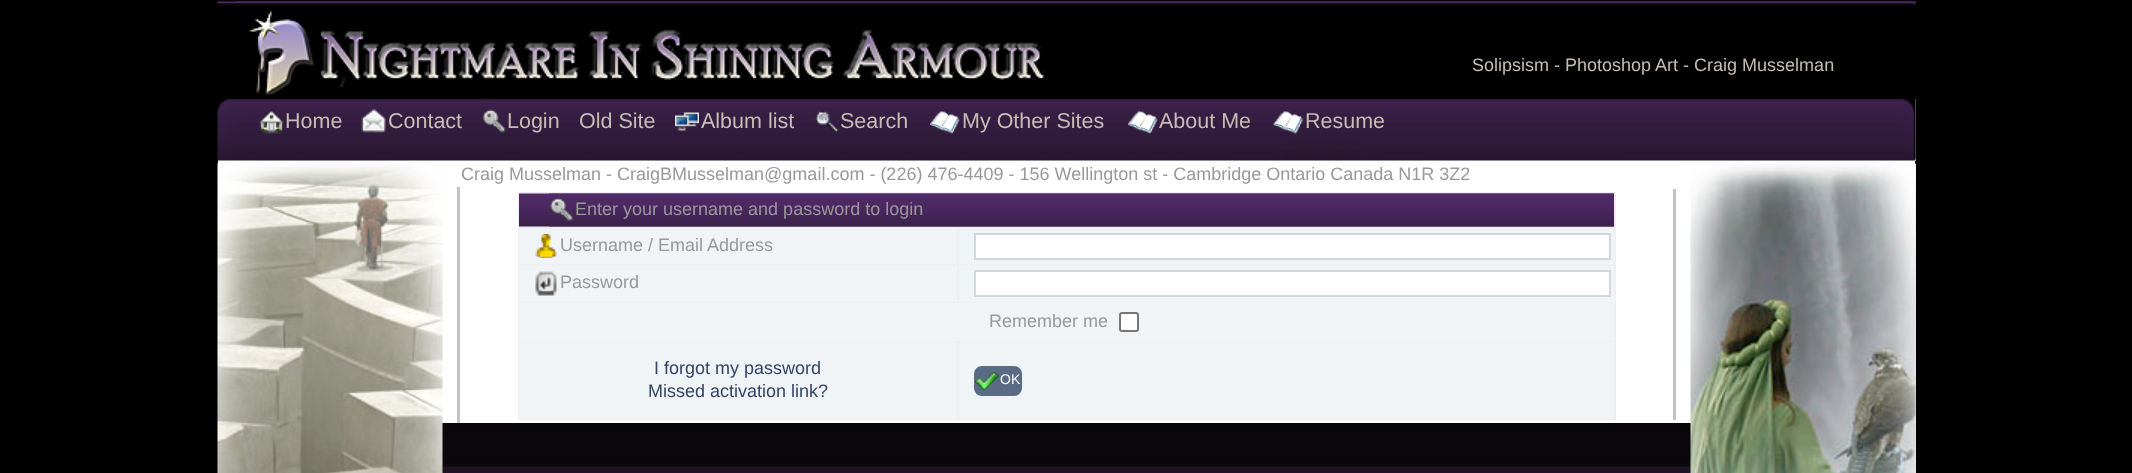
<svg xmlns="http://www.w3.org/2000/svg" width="2132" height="473">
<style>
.a{font:18px Liberation Sans;fill:#c6bdb3}
.b{font:21.5px Liberation Sans;fill:#c6bdb3}
.c{font:18px Liberation Sans;fill:#999}
.d{font:18px Liberation Sans;fill:#346}
.e{font:14px Liberation Sans;fill:#fff}
</style>
<rect width="100%" height="100%" fill="#000"/>
<path fill="#fff" d="M218 161h1697v262H218z"/>
<image href="1.png" x="217" y="1" width="1699" height="98"/>
<image href="2.png" x="235" y="1" width="1681" height="98"/>
<image href="3.png" x="248" y="10" width="798" height="85"/>
<path fill="#fefefe" d="M218 99h1698v62H218z"/>
<image href="4.png" x="217" y="99" width="1699" height="62"/>
<image href="5.png" x="1903" y="99" width="13" height="60"/>
<image href="6.png" x="259" y="109" width="25" height="25"/>
<image href="7.png" x="361" y="109" width="25" height="25"/>
<image href="8.png" x="482" y="109" width="24" height="24"/>
<image href="9.png" x="675" y="112" width="24" height="19"/>
<image href="10.png" x="815" y="111" width="24" height="22"/>
<image href="11.png" x="930" y="111" width="30" height="23"/>
<image href="12.png" x="1128" y="111" width="30" height="23"/>
<image href="13.png" x="1273" y="111" width="31" height="23"/>
<image href="22.png" x="217" y="423" width="1474" height="50"/>
<image href="14.png" x="217" y="163" width="226" height="310"/>
<path fill="#c3c3c3" d="M457 187h3v236H457z"/>
<path fill="#c3c3c3" d="M1673 189h3v231H1673z"/>
<path fill="#efefef" d="M518 192h1098v228H518z"/>
<image href="15.png" x="519" y="193" width="1095" height="34"/>
<image href="16.png" x="549" y="193" width="1065" height="34"/>
<image href="17.png" x="550" y="198" width="23" height="24"/>
<path fill="#f0f4f7" d="M519 228h438v36H519z"/>
<image href="18.png" x="535" y="234" width="22" height="24"/>
<path fill="#f0f4f7" d="M959 228h655v36H959z"/>
<path fill="#fff" stroke="#d1d7dc" stroke-width="2" d="M975 234h635v25H975z"/>
<path fill="#f0f4f7" d="M519 266h438v36H519z"/>
<image href="19.png" x="535" y="271" width="22" height="25"/>
<path fill="#f0f4f7" d="M959 266h655v36H959z"/>
<path fill="#fff" stroke="#d1d7dc" stroke-width="2" d="M975 271h635v25H975z"/>
<path fill="#f0f4f7" d="M519 303h1095v38H519z"/>
<rect fill="#fff" stroke="#767676" stroke-width="2" x="1120" y="313" width="18" height="18" rx="2"/>
<path fill="#f0f4f7" d="M519 342h438v77H519z"/>
<path fill="#f0f4f7" d="M959 342h655v77H959z"/>
<rect fill="#5a6c85" stroke="#5a6c85" stroke-width="2" x="975" y="367" width="46" height="28" rx="7"/>
<image href="20.png" x="975" y="371" width="24" height="20"/>
<path fill="#ebebeb" d="M1915 164h1v309H1915z"/>
<image href="21.png" x="1690" y="163" width="226" height="310"/>
<text class="a" x="1472" y="71">Solipsism - Photoshop Art - Craig Musselman</text>
<text class="b" x="285" y="128">Home</text>
<text class="b" x="388" y="128">Contact</text>
<text class="b" x="507" y="128">Login</text>
<text class="b" x="579" y="128">Old Site</text>
<text class="b" x="701" y="128">Album list</text>
<text class="b" x="840" y="128">Search</text>
<text class="b" x="962" y="128">My Other Sites</text>
<text class="b" x="1159" y="128">About Me</text>
<text class="b" x="1305" y="128">Resume</text>
<text class="c" x="461" y="180">Craig Musselman - CraigBMusselman@gmail.com - (226) 476-4409 - 156 Wellington st - Cambridge Ontario Canada N1R 3Z2</text>
<text class="c" x="575" y="215">Enter your username and password to login</text>
<text class="c" x="560" y="251">Username / Email Address</text>
<text class="c" x="560" y="288">Password</text>
<text class="c" x="989" y="327">Remember me</text>
<text class="d" x="654" y="374">I forgot my password</text>
<text class="d" x="648" y="397">Missed activation link?</text>
<text class="e" x="1000" y="384">OK</text>
</svg>
